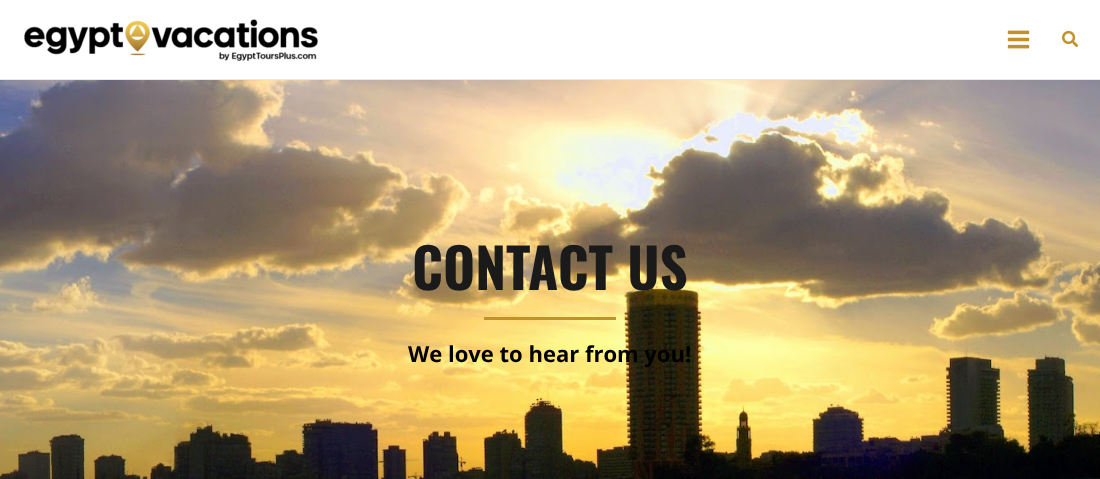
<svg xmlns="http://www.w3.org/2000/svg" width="1100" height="479">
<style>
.a{font:bold 55px Oswald;fill:#1a1a1a}
.b{font:bold 22px Open Sans;fill:#000}
</style>
<rect width="100%" height="100%" fill="#fff"/>
<path fill="#e2e8f0" d="M0 79h1100v1H0z"/>
<image href="1.png" x="24" y="19" width="294" height="42"/>
<image href="2.png" x="1007" y="30" width="23" height="19"/>
<image href="3.png" x="1062" y="30" width="16" height="17"/>
<image href="4.png" x="0" y="80" width="1100" height="399"/>
<path fill="#c1922c" d="M484 317h132v3H484z"/>
<text class="a" x="412" y="290">CONTACT US</text>
<text class="b" x="408" y="362">We love to hear from you!</text>
</svg>
